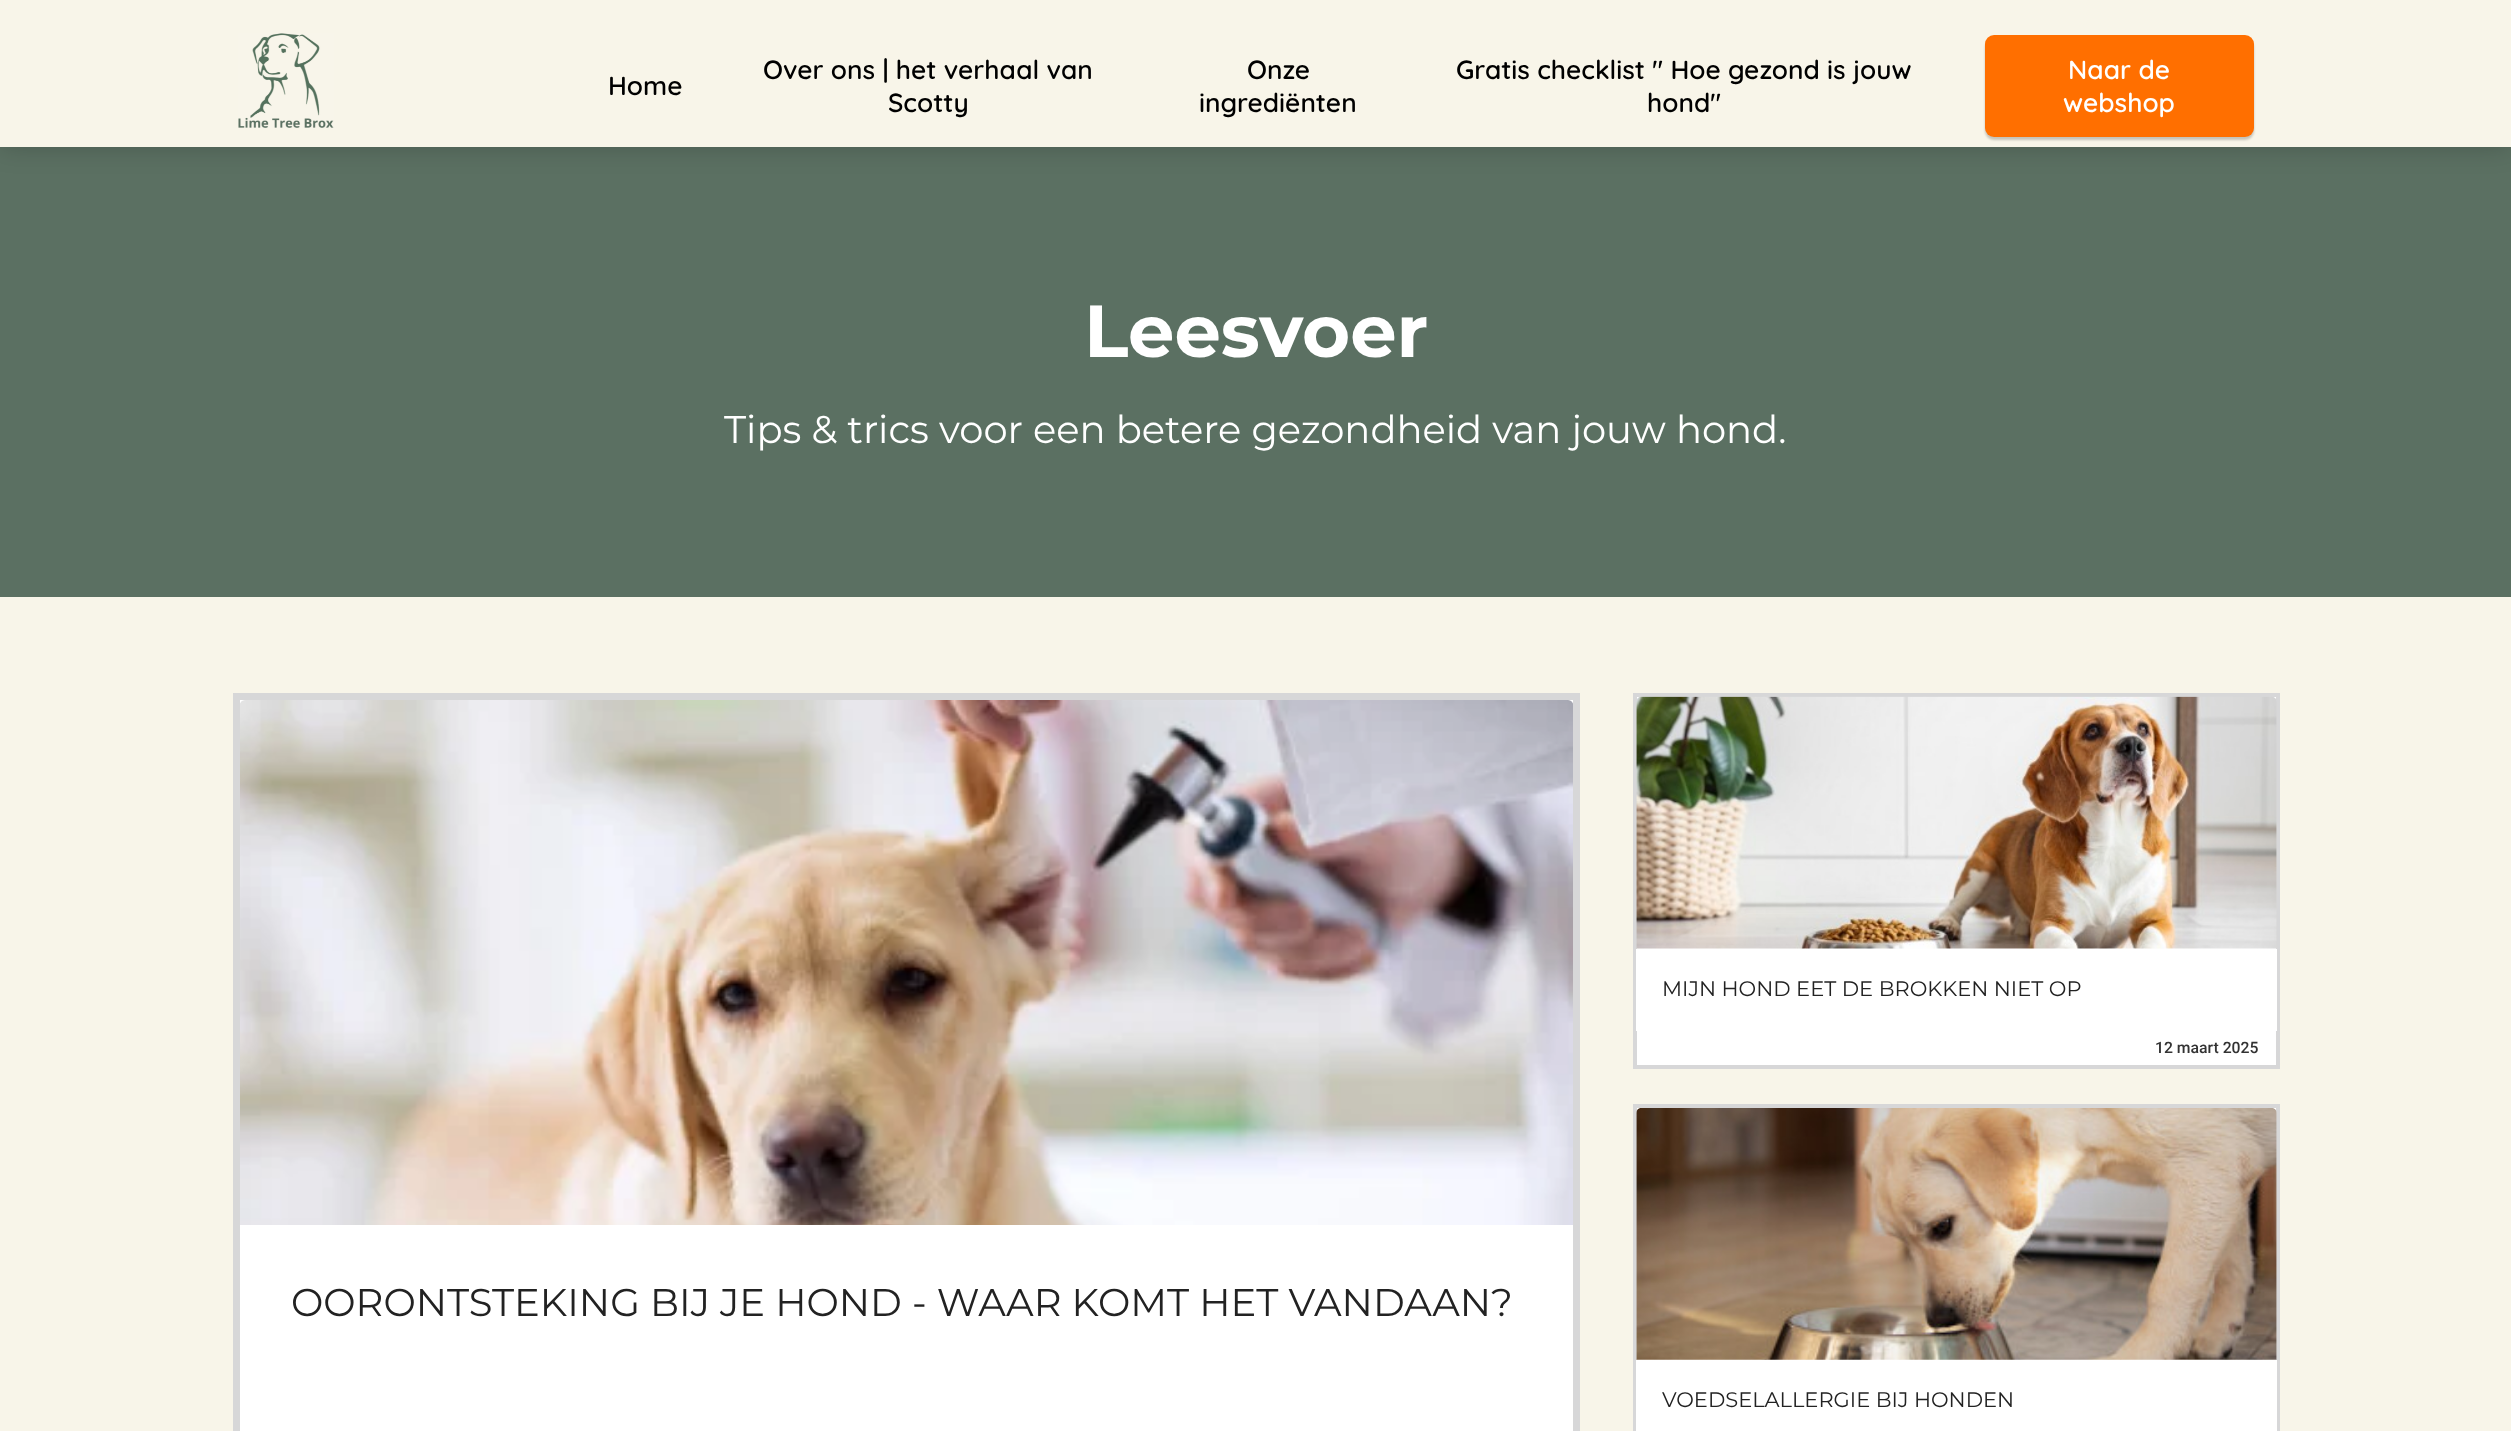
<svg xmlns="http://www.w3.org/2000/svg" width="2511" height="1431">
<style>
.a{font:600 26.25px Quicksand;fill:#000}
.b{font:600 26.25px Quicksand;fill:#fff}
.c{font:100 73.5px Montserrat;fill:#fff}
.d{font:100 38.5px 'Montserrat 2';fill:#fff}
.e{font:100 21px 'Montserrat 2';fill:#222}
.f{font:500 15.75px Roboto;fill:#333}
.g{font:100 38.5px 'Montserrat 2';fill:#222}
</style>
<defs>
<clipPath id="clip1"><path d="M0 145h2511v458h-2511zm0 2h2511v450h-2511z" clip-rule="evenodd"/></clipPath>
</defs>
<rect width="100%" height="100%" fill="#5b7062"/>
<path fill="#00000033" filter="blur(13px)" d="M0 0h2511v147H0z"/>
<g clip-path="url(#clip1)">
<path fill="#a3a3a391" filter="blur(1px)" d="M2 149h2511v450H2z"/>
</g>
<path fill="#f8f5e9" d="M0 0h2511v147H0z"/>
<image href="1.png" x="238" y="33" width="96" height="95"/>
<rect fill="#00000033" filter="blur(1px)" x="1985" y="39" width="269" height="101" rx="9"/>
<rect fill="#ff6f00" x="1985" y="35" width="269" height="102" rx="9"/>
<path fill="#f8f5e9" d="M0 597h2511v834H0z"/>
<path fill="#fff" stroke="#d7d7d8" stroke-width="4" d="M1635 695h643v372H1635z"/>
<image href="2.png" x="1636" y="696" width="641" height="253"/>
<path fill="#fff" d="M1636 949h641v82H1636z"/>
<path fill="#fff" stroke="#d7d7d8" stroke-width="7" d="M236.5 696.5h1340v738H236.5z"/>
<image href="3.png" x="240" y="700" width="1333" height="525"/>
<path fill="#fff" d="M1637 1108h639v252H1637z"/>
<path fill="none" stroke="#d7d7d8" stroke-width="4" d="M1635 1106h643v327H1635z"/>
<image href="4.png" x="1636" y="1108" width="641" height="252"/>
<path fill="#fff" d="M1636 1360h641v71H1636z"/>
<text class="a" x="608" y="95">Home</text>
<text class="a" x="763" y="79">Over ons | het verhaal van</text>
<text class="a" x="888" y="112">Scotty</text>
<text class="a" x="1247" y="79">Onze</text>
<text class="a" x="1199" y="112">ingrediënten</text>
<text class="a" x="1456" y="79">Gratis checklist " Hoe gezond is jouw</text>
<text class="a" x="1647" y="112">hond"</text>
<text class="b" x="2068" y="79">Naar de</text>
<text class="b" x="2063" y="112">webshop</text>
<text class="c" x="1084" y="357">Leesvoer</text>
<text class="d" x="724" y="443">Tips &amp; trics voor een betere gezondheid van jouw hond.</text>
<text class="e" x="1662" y="996">MIJN HOND EET DE BROKKEN NIET OP</text>
<text class="f" x="2155" y="1053">12 maart 2025</text>
<text class="g" x="291" y="1316">OORONTSTEKING BIJ JE HOND - WAAR KOMT HET VANDAAN?</text>
<text class="e" x="1662" y="1407">VOEDSELALLERGIE BIJ HONDEN</text>
</svg>
